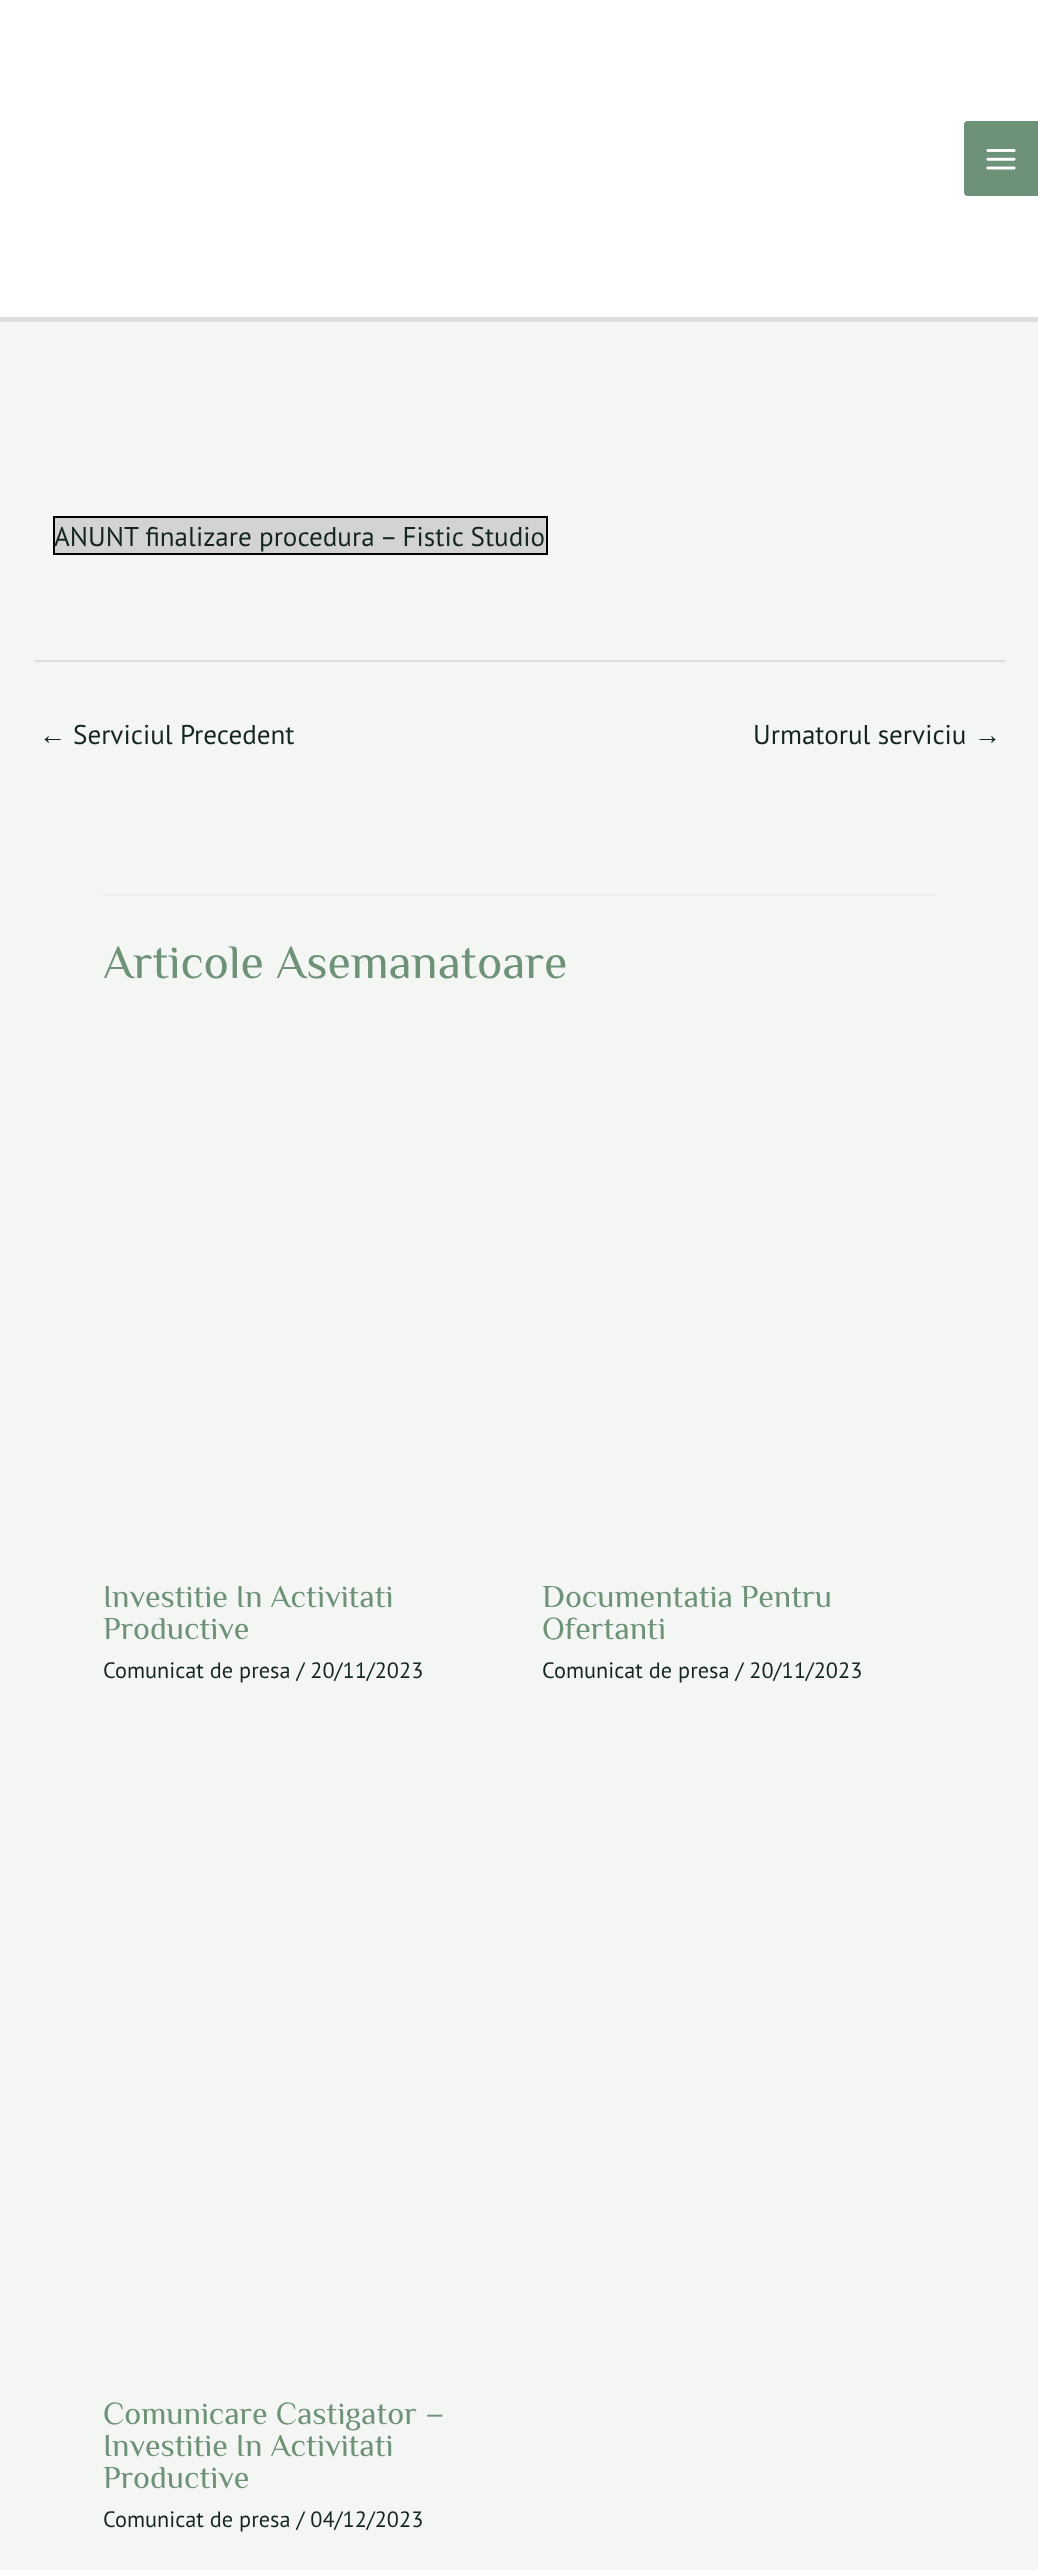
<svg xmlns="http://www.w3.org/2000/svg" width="1038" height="2570">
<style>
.a{font:27.1px PT Sans;fill:#14261c}
.b{font:27.1px Liberation Sans;fill:#14261c}
.c{font:47.9px Philosopher;fill:#6e9277}
.d{font:32px Philosopher;fill:#6e9277}
.e{font:22.3px PT Sans;fill:#14261c}
</style>
<rect width="100%" height="100%" fill="#f4f6f4"/>
<path fill="#fff" d="M0 0h1038v317H0z"/>
<path fill="#ddd" d="M0 317h1038v5H0z"/>
<rect fill="#6e9277" x="964" y="121" width="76" height="75" rx="4"/>
<image href="1.png" x="986" y="149" width="30" height="21"/>
<path fill="#d3d3d3" stroke="#000" stroke-width="2" d="M54 517h493v37H54z"/>
<path fill="#ddd" d="M35 660h970v2H35z"/>
<path fill="#eee" d="M103 894h833v2H103z"/>
<text class="a" x="54" y="546">ANUNT finalizare procedura – Fistic Studio</text>
<text class="b" x="39" y="744">←</text>
<text class="a" x="73" y="744">Serviciul Precedent</text>
<text class="a" x="753" y="744">Urmatorul serviciu</text>
<text class="b" x="974" y="744">→</text>
<text class="c" x="103" y="978">Articole Asemanatoare</text>
<text class="d" x="103" y="1607">Investitie In Activitati</text>
<text class="d" x="103" y="1639">Productive</text>
<text class="e" x="103" y="1678">Comunicat de presa / 20/11/2023</text>
<text class="d" x="542" y="1607">Documentatia Pentru</text>
<text class="d" x="542" y="1639">Ofertanti</text>
<text class="e" x="542" y="1678">Comunicat de presa / 20/11/2023</text>
<text class="d" x="103" y="2424">Comunicare Castigator –</text>
<text class="d" x="103" y="2456">Investitie In Activitati</text>
<text class="d" x="103" y="2488">Productive</text>
<text class="e" x="103" y="2527">Comunicat de presa / 04/12/2023</text>
</svg>
